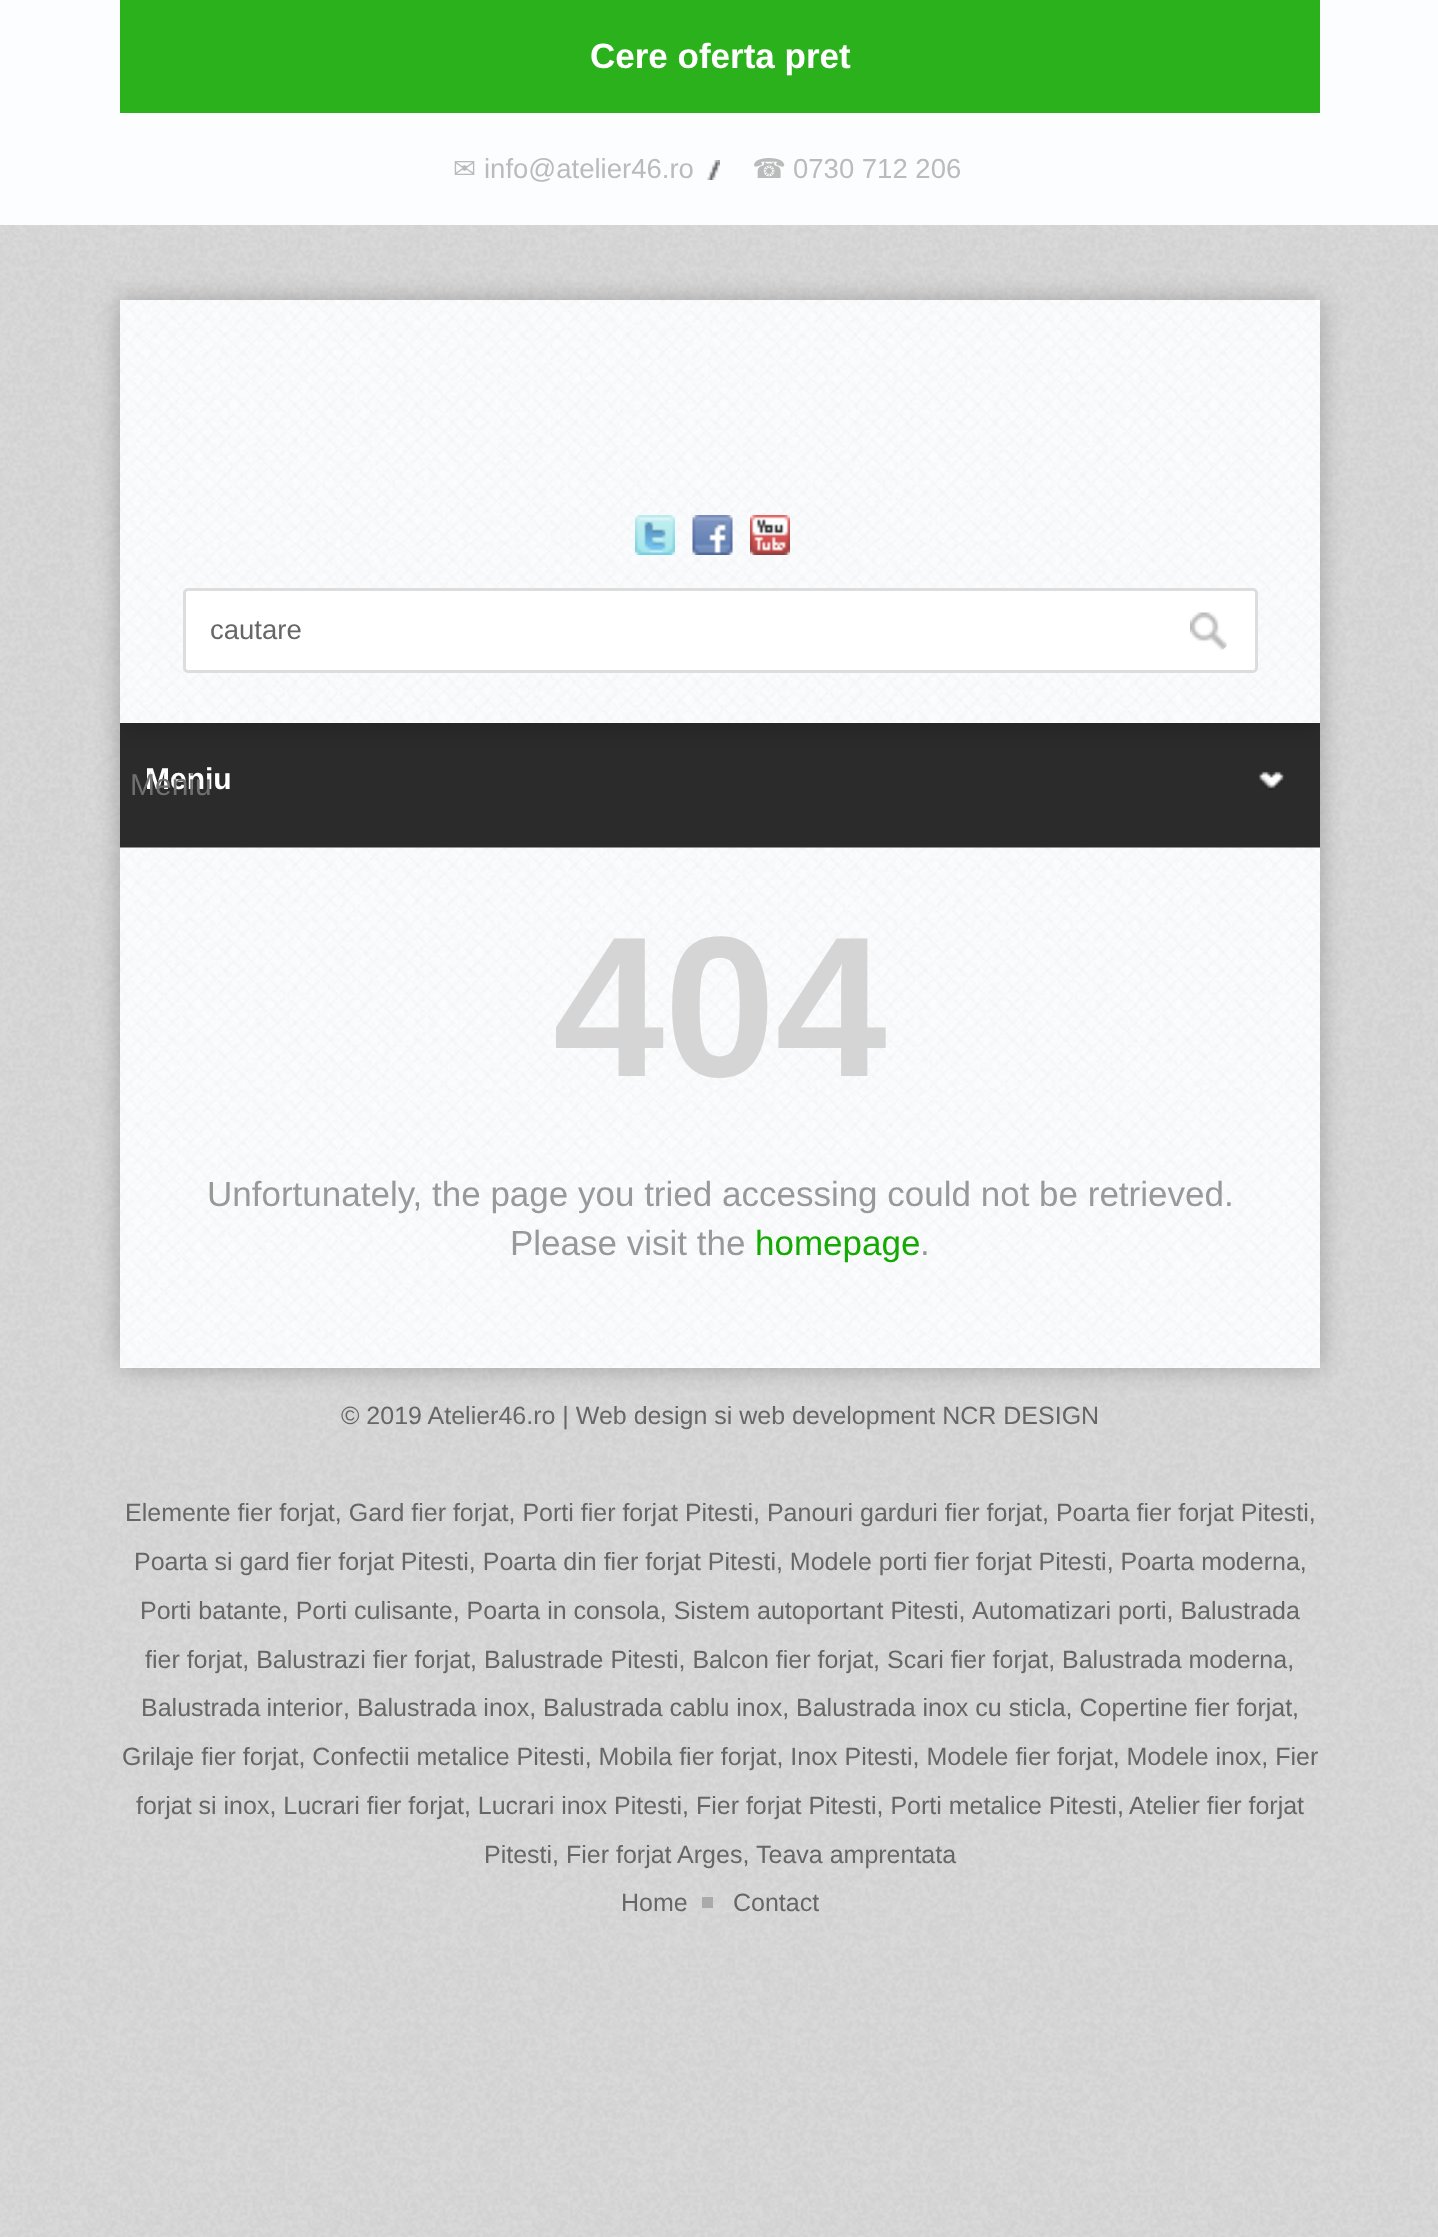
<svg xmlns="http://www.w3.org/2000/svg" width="1438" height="2237">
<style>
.a{font:bold 35px Liberation Sans;fill:#fff}
.b{font:27.5px DejaVu Sans;fill:#bbb}
.c{font:27.5px Liberation Sans;fill:#bbb}
.d{font:27.5px Liberation Sans;fill:#666}
.e{font:bold 30px Liberation Sans;fill:#fff}
.f{font:30px Liberation Sans;fill:#707070}
.g{font:bold 200px Liberation Sans;fill:#d5d5d5}
.h{font:35px Liberation Sans;fill:#999}
.i{font:35px Liberation Sans;fill:#14a903}
.j{font:25px Liberation Sans;fill:#666}
</style>
<rect width="100%" height="100%" fill="#fff"/>
<image href="1.png" x="0" y="225" width="1438" height="2012"/>
<path fill="#fcfdfe" d="M0 0h1438v225H0z"/>
<path fill="#2bb11c" d="M120 0h1200v113H120z"/>
<image href="2.png" x="707" y="160" width="13" height="20"/>
<path fill="#00000040" filter="blur(12.5px)" d="M120 723h1200v645H120z"/>
<path fill="#2b2b2b" d="M120 723h1200v125H120z"/>
<path fill="#00000040" filter="blur(12.5px)" d="M120 300h1200v423H120z"/>
<path fill="#fff" d="M120 722h1200v1H120z"/>
<image href="3.png" x="120" y="300" width="1200" height="423"/>
<image href="4.png" x="635" y="515" width="40" height="40"/>
<image href="5.png" x="692" y="515" width="41" height="40"/>
<image href="6.png" x="750" y="515" width="40" height="40"/>
<rect fill="#fff" stroke="#ddd" stroke-width="3" x="184.5" y="589.5" width="1072" height="82" rx="3.5"/>
<image href="7.png" x="1190" y="612" width="37" height="38"/>
<image href="8.png" x="1258" y="771" width="25" height="19"/>
<image href="9.png" x="1261" y="771" width="24" height="19"/>
<path fill="#fff" d="M120 1367h1200v1H120z"/>
<image href="10.png" x="120" y="847" width="1200" height="521"/>
<path fill="#aaa" d="M702 1897h11v11H702z"/>
<text class="a" x="590" y="68">Cere oferta pret</text>
<text class="b" x="453" y="178">✉</text>
<text class="c" x="484" y="178">info@atelier46.ro</text>
<text class="b" x="752" y="178">☎</text>
<text class="c" x="793" y="178">0730 712 206</text>
<text class="d" x="210" y="639">cautare</text>
<text class="e" x="145" y="789">Meniu</text>
<text class="f" x="130" y="795">Meniu</text>
<text class="g" x="553" y="1076">404</text>
<text class="h" x="207" y="1206">Unfortunately, the page you tried accessing could not be retrieved.</text>
<text class="h" x="510" y="1255">Please visit the</text>
<text class="i" x="755" y="1255">homepage</text>
<text class="h" x="920" y="1255">.</text>
<text class="j" x="341" y="1424">© 2019 Atelier46.ro | Web design si web development NCR DESIGN</text>
<text class="j" x="125" y="1521">Elemente fier forjat, Gard fier forjat, Porti fier forjat Pitesti, Panouri garduri fier forjat, Poarta fier forjat Pitesti,</text>
<text class="j" x="134" y="1570">Poarta si gard fier forjat Pitesti, Poarta din fier forjat Pitesti, Modele porti fier forjat Pitesti, Poarta moderna,</text>
<text class="j" x="140" y="1619">Porti batante, Porti culisante, Poarta in consola, Sistem autoportant Pitesti,</text>
<text class="j" x="972" y="1619">Automatizari porti, Balustrada</text>
<text class="j" x="145" y="1668">fier forjat, Balustrazi fier forjat, Balustrade Pitesti, Balcon fier forjat, Scari fier forjat, Balustrada moderna,</text>
<text class="j" x="141" y="1716" word-spacing="-1">Balustrada interior</text>
<text class="j" x="343" y="1716">, Balustrada inox, Balustrada cablu inox, Balustrada inox cu sticla, Copertine fier forjat,</text>
<text class="j" x="122" y="1765">Grilaje fier forjat, Confectii metalice Pitesti, Mobila fier forjat, Inox Pitesti, Modele fier forjat, Modele inox, Fier</text>
<text class="j" x="136" y="1814">forjat si inox, Lucrari fier forjat, Lucrari inox Pitesti, Fier forjat Pitesti, Porti metalice Pitesti,</text>
<text class="j" x="1129" y="1814">Atelier fier forjat</text>
<text class="j" x="484" y="1863">Pitesti, Fier forjat Arges,</text>
<text class="j" x="756" y="1863">Teava amprentata</text>
<text class="j" x="621" y="1911">Home</text>
<text class="j" x="733" y="1911">Contact</text>
</svg>
